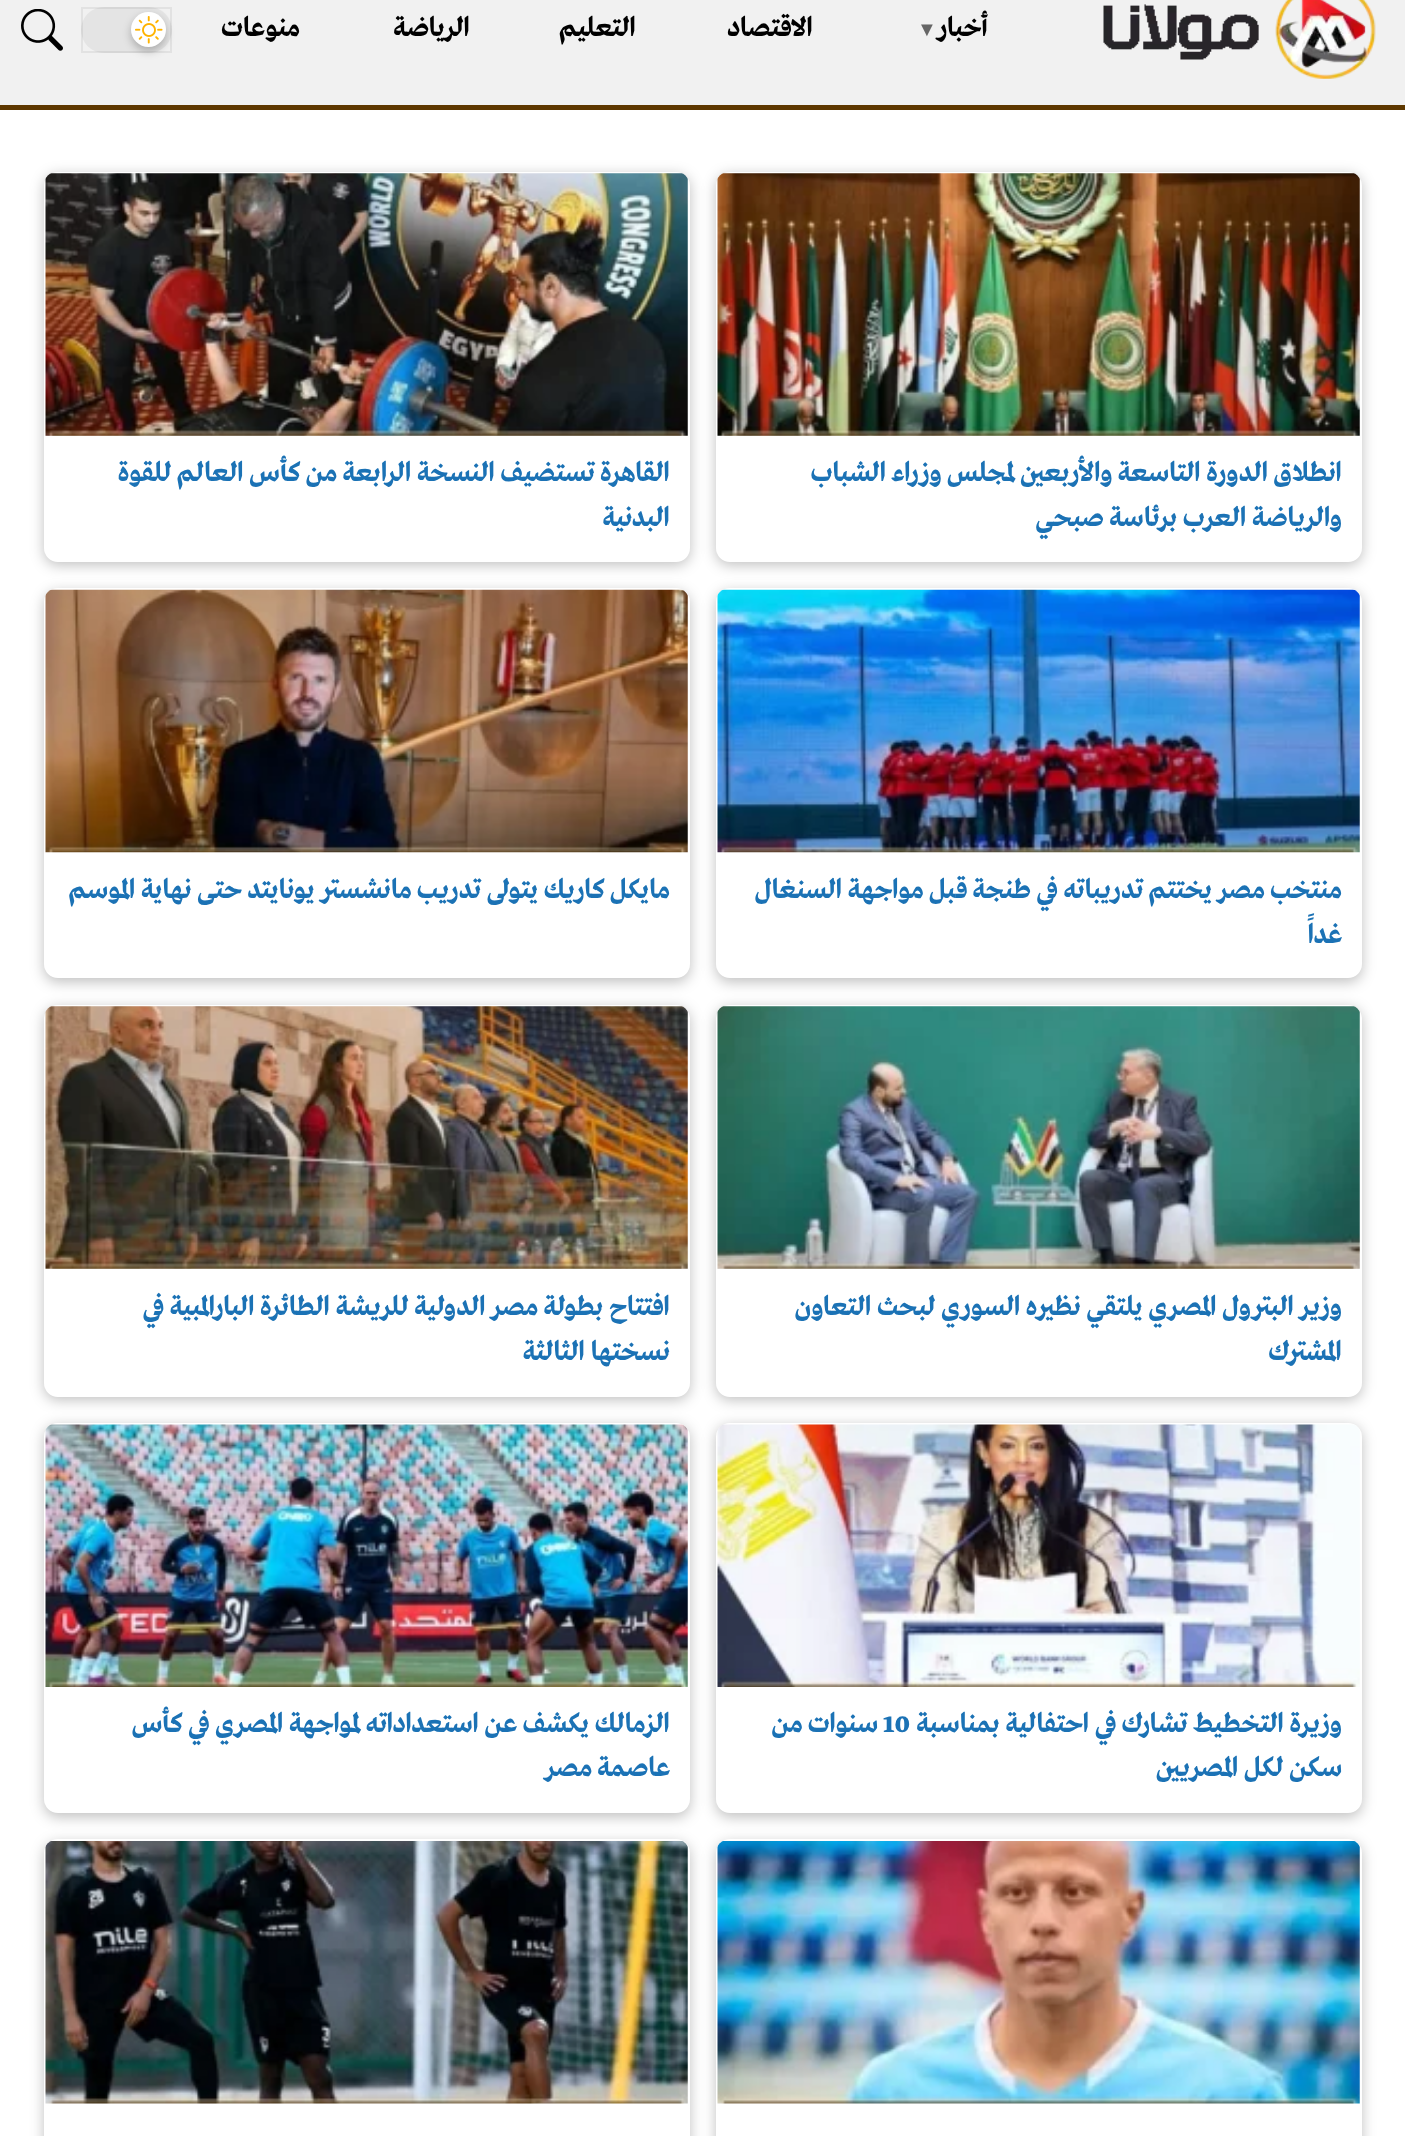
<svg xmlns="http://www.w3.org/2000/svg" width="1405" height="2136">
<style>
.a{font:bold 28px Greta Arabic;letter-spacing:0.25px;direction:rtl;fill:#000}
.b{font:bold 20px Liberation Serif;letter-spacing:0.25px;fill:#666}
.c{font:bold 28px Greta Arabic;direction:rtl;fill:#1b72b5}
.d{font:bold 28px Greta Arabic;fill:#1b72b5}
</style>
<rect width="100%" height="100%" fill="#fff"/>
<path fill="#f1f1f1" d="M0 0h1405v105H0z"/>
<path fill="#5e3800" d="M0 105h1405v5H0z"/>
<image href="1.png" x="1103" y="0" width="273" height="79"/>
<rect fill="#e4e4e4" x="81" y="7" width="91" height="46" rx="23"/>
<path fill="none" stroke="#0000000f" stroke-width="2" d="M82 8h89v44H82z"/>
<rect fill="#00000040" filter="blur(4.5px)" x="131" y="16" width="35" height="35" rx="17.5"/>
<circle fill="#fff" cx="148.5" cy="29.5" r="17.5"/>
<image href="2.png" x="135" y="16" width="28" height="28"/>
<image href="3.png" x="21" y="9" width="42" height="42"/>
<rect fill="#00000040" filter="blur(7px)" x="716" y="175" width="646" height="390" rx="14"/>
<rect fill="#fff" x="716" y="172" width="646" height="390" rx="14"/>
<image href="4.png" x="717" y="173" width="643" height="263"/>
<rect fill="#00000040" filter="blur(7px)" x="44" y="175" width="646" height="390" rx="14"/>
<rect fill="#fff" x="44" y="172" width="646" height="390" rx="14"/>
<image href="5.png" x="45" y="173" width="643" height="263"/>
<rect fill="#00000040" filter="blur(7px)" x="716" y="592" width="646" height="390" rx="14"/>
<rect fill="#fff" x="716" y="588" width="646" height="390" rx="14"/>
<image href="6.png" x="717" y="589" width="643" height="264"/>
<rect fill="#00000040" filter="blur(7px)" x="44" y="592" width="646" height="390" rx="14"/>
<rect fill="#fff" x="44" y="588" width="646" height="390" rx="14"/>
<image href="7.png" x="45" y="589" width="643" height="264"/>
<rect fill="#00000040" filter="blur(7px)" x="716" y="1008" width="646" height="392" rx="14"/>
<rect fill="#fff" x="716" y="1005" width="646" height="392" rx="14"/>
<image href="8.png" x="717" y="1006" width="643" height="263"/>
<rect fill="#00000040" filter="blur(7px)" x="44" y="1008" width="646" height="392" rx="14"/>
<rect fill="#fff" x="44" y="1005" width="646" height="392" rx="14"/>
<image href="9.png" x="45" y="1006" width="643" height="263"/>
<rect fill="#00000040" filter="blur(7px)" x="716" y="1426" width="646" height="391" rx="14"/>
<rect fill="#fff" x="716" y="1423" width="646" height="390" rx="14"/>
<image href="10.png" x="717" y="1424" width="643" height="263"/>
<rect fill="#00000040" filter="blur(7px)" x="44" y="1426" width="646" height="391" rx="14"/>
<rect fill="#fff" x="44" y="1423" width="646" height="390" rx="14"/>
<image href="11.png" x="45" y="1424" width="643" height="263"/>
<rect fill="#00000040" filter="blur(7px)" x="716" y="1843" width="646" height="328" rx="14"/>
<rect fill="#fff" x="716" y="1839" width="646" height="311" rx="14"/>
<image href="12.png" x="717" y="1841" width="643" height="263"/>
<rect fill="#00000040" filter="blur(7px)" x="44" y="1843" width="646" height="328" rx="14"/>
<rect fill="#fff" x="44" y="1839" width="646" height="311" rx="14"/>
<image href="13.png" x="45" y="1841" width="643" height="263"/>
<text class="a" x="988" y="36">أخبار</text>
<text class="b" x="917" y="36">▼</text>
<text class="a" x="813" y="36">الاقتصاد</text>
<text class="a" x="636" y="36">التعليم</text>
<text class="a" x="470" y="36">الرياضة</text>
<text class="a" x="300" y="36">منوعات</text>
<text class="c" x="1342" y="481">انطلاق الدورة التاسعة والأربعين لمجلس وزراء الشباب</text>
<text class="c" x="1342" y="526">والرياضة العرب برئاسة صبحي</text>
<text class="c" x="670" y="481">القاهرة تستضيف النسخة الرابعة من كأس العالم للقوة</text>
<text class="c" x="670" y="526">البدنية</text>
<text class="c" x="1342" y="898">منتخب مصر يختتم تدريباته في طنجة قبل مواجهة السنغال</text>
<text class="c" x="1342" y="943">غداً</text>
<text class="c" x="670" y="898">مايكل كاريك يتولى تدريب مانشستر يونايتد حتى نهاية الموسم</text>
<text class="c" x="1342" y="1315">وزير البترول المصري يلتقي نظيره السوري لبحث التعاون</text>
<text class="c" x="1342" y="1360">المشترك</text>
<text class="c" x="670" y="1315">افتتاح بطولة مصر الدولية للريشة الطائرة البارالمبية في</text>
<text class="c" x="670" y="1360">نسختها الثالثة</text>
<text class="c" x="1342" y="1732">وزيرة التخطيط تشارك في احتفالية بمناسبة</text>
<text class="d" x="883" y="1732">10</text>
<text class="c" x="878" y="1732">سنوات من</text>
<text class="c" x="1342" y="1776">سكن لكل المصريين</text>
<text class="c" x="670" y="1732">الزمالك يكشف عن استعداداته لمواجهة المصري في كأس</text>
<text class="c" x="670" y="1776">عاصمة مصر</text>
</svg>
